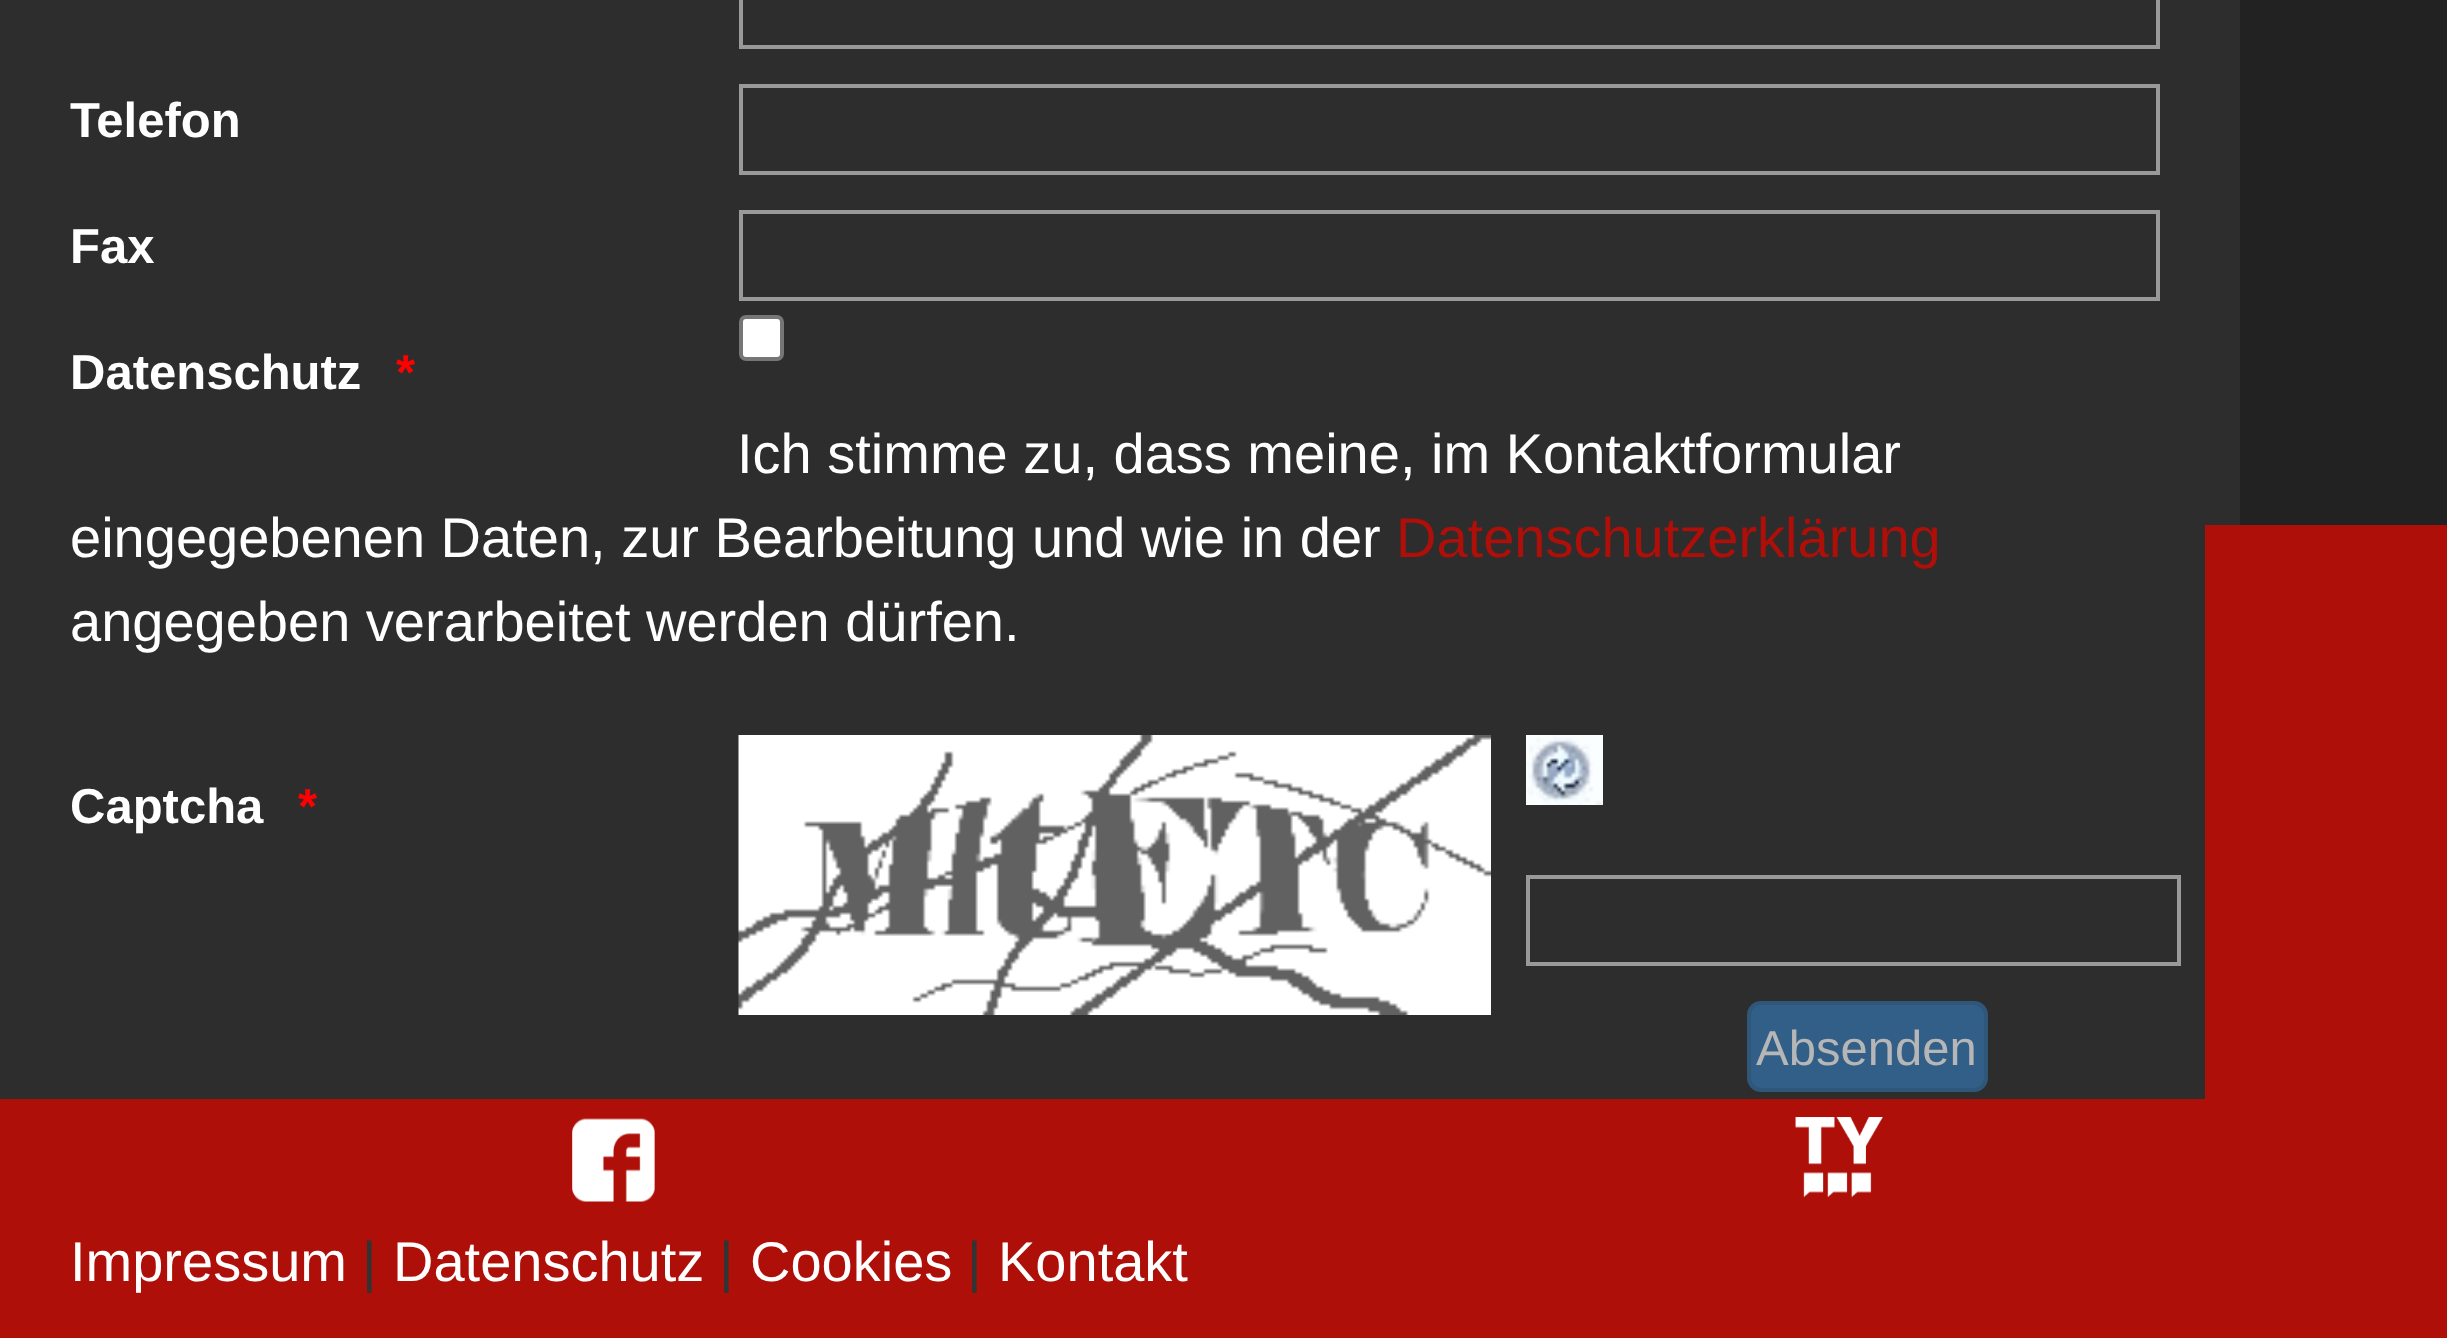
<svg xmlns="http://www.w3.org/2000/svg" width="2447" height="1338">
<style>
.a{font:bold 49px Liberation Sans;fill:#fff}
.b{font:bold 49px Liberation Sans;fill:#f00}
.c{font:56px Liberation Sans;fill:#fff}
.d{font:56px Liberation Sans;fill:#ae0f09}
.e{font:49px Liberation Sans;fill:#b6b6b6}
.f{font:56px Liberation Sans;fill:#333}
</style>
<rect width="100%" height="100%" fill="#222"/>
<path fill="#2d2d2d" d="M0 0h2240v1099H0z"/>
<path fill="none" stroke="#999" stroke-width="4" d="M741 -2h1417v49H741z"/>
<path fill="none" stroke="#999" stroke-width="4" d="M741 86h1417v87H741z"/>
<path fill="none" stroke="#999" stroke-width="4" d="M741 212h1417v87H741z"/>
<rect fill="#fff" stroke="#767676" stroke-width="4" x="741" y="317" width="41" height="42" rx="5"/>
<image href="1.png" x="738" y="735" width="753" height="280"/>
<image href="2.png" x="1526" y="735" width="77" height="70"/>
<path fill="none" stroke="#999" stroke-width="4" d="M1528 877h651v87H1528z"/>
<rect fill="#315f87" stroke="#2e577a" stroke-width="4" x="1749" y="1003" width="237" height="87" rx="12"/>
<path fill="#ae0f09" d="M0 1099h2447v239H0z"/>
<image href="3.png" x="572" y="1118" width="83" height="84"/>
<image href="4.png" x="1795" y="1117" width="88" height="81"/>
<path fill="#ae0f09" d="M2205 525h242v574H2205z"/>
<text class="a" x="70" y="137">Telefon</text>
<text class="a" x="70" y="263">Fax</text>
<text class="a" x="70" y="389">Datenschutz</text>
<text class="b" x="396" y="389">*</text>
<text class="c" x="737" y="473">Ich stimme zu, dass meine, im Kontaktformular</text>
<text class="c" x="70" y="557">eingegebenen Daten, zur Bearbeitung und wie in der</text>
<text class="d" x="1396" y="557">Datenschutzerklärung</text>
<text class="c" x="70" y="641">angegeben verarbeitet werden dürfen.</text>
<text class="a" x="70" y="823">Captcha</text>
<text class="b" x="298" y="823">*</text>
<text class="e" x="1756" y="1065">Absenden</text>
<text class="c" x="70" y="1281">Impressum</text>
<text class="f" x="362" y="1281">|</text>
<text class="c" x="393" y="1281">Datenschutz</text>
<text class="f" x="719" y="1281">|</text>
<text class="c" x="750" y="1281">Cookies</text>
<text class="f" x="967" y="1281">|</text>
<text class="c" x="998" y="1281">Kontakt</text>
</svg>
